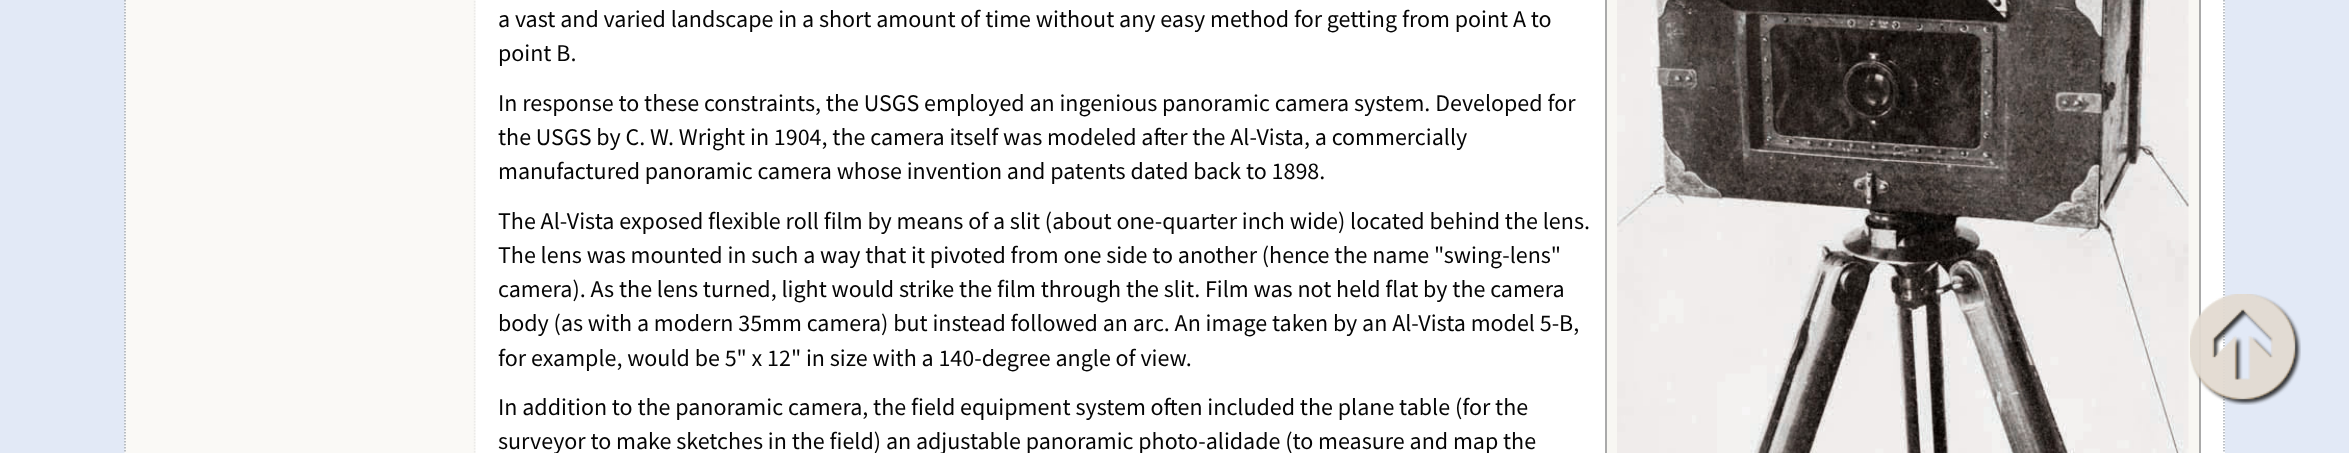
<svg xmlns="http://www.w3.org/2000/svg" width="2349" height="453">
<style>
.a{font:24px Source Sans Pro;fill:#050505}
</style>
<defs>
<linearGradient id="g1" gradientUnits="userSpaceOnUse" x1="1174" y1="-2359" x2="1175" y2="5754"><stop offset="0.39" stop-color="#e2e9f6"/><stop offset="1" stop-color="#2d4d76"/></linearGradient>
</defs>
<rect width="100%" height="100%" fill="#fff"/>
<path fill="url(#g1)" d="M0 0h2349v453H0z"/>
<path fill="#fff" d="M476 0h1749v453H476z"/>
<image href="1.png" x="124" y="0" width="352" height="453"/>
<path fill="none" stroke="#a4abb3" stroke-width="1.5" stroke-dasharray="1.5 1.5" d="M2224-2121v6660"/>
<path fill="none" stroke="#a4abb3" stroke-width="1.5" stroke-dasharray="1.5 1.5" d="M125-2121v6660"/>
<path fill="#f8f7f3" stroke="#aaa" stroke-width="2" d="M1606 -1h594v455H1606z"/>
<image href="2.png" x="1617" y="0" width="572" height="453"/>
<image href="3.png" x="2190" y="294" width="111" height="111"/>
<image href="4.png" x="2190" y="294" width="111" height="111"/>
<text class="a" x="498" y="27">a vast and varied landscape in a short amount of time without any easy method for getting from point A to</text>
<text class="a" x="498" y="61">point B.</text>
<text class="a" x="498" y="111">In response to these constraints, the USGS employed an ingenious panoramic camera system. Developed for</text>
<text class="a" x="498" y="145">the USGS by C. W. Wright in 1904, the camera itself was modeled after the Al-Vista, a commercially</text>
<text class="a" x="498" y="179">manufactured panoramic camera whose invention and patents dated back to 1898.</text>
<text class="a" x="498" y="229">The Al-Vista exposed flexible roll film by means of a slit (about one-quarter inch wide) located behind the lens.</text>
<text class="a" x="498" y="263">The lens was mounted in such a way that it pivoted from one side to another (hence the name "swing-lens"</text>
<text class="a" x="498" y="297">camera). As the lens turned, light would strike the film through the slit. Film was not held flat by the camera</text>
<text class="a" x="498" y="331">body (as with a modern 35mm camera) but instead followed an arc. An image taken by an Al-Vista model 5-B,</text>
<text class="a" x="498" y="366">for example, would be 5" x 12" in size with a 140-degree angle of view.</text>
<text class="a" x="498" y="415">In addition to the panoramic camera, the field equipment system often included the plane table (for the</text>
<text class="a" x="498" y="449">surveyor to make sketches in the field) an adjustable panoramic photo-alidade (to measure and map the</text>
</svg>
